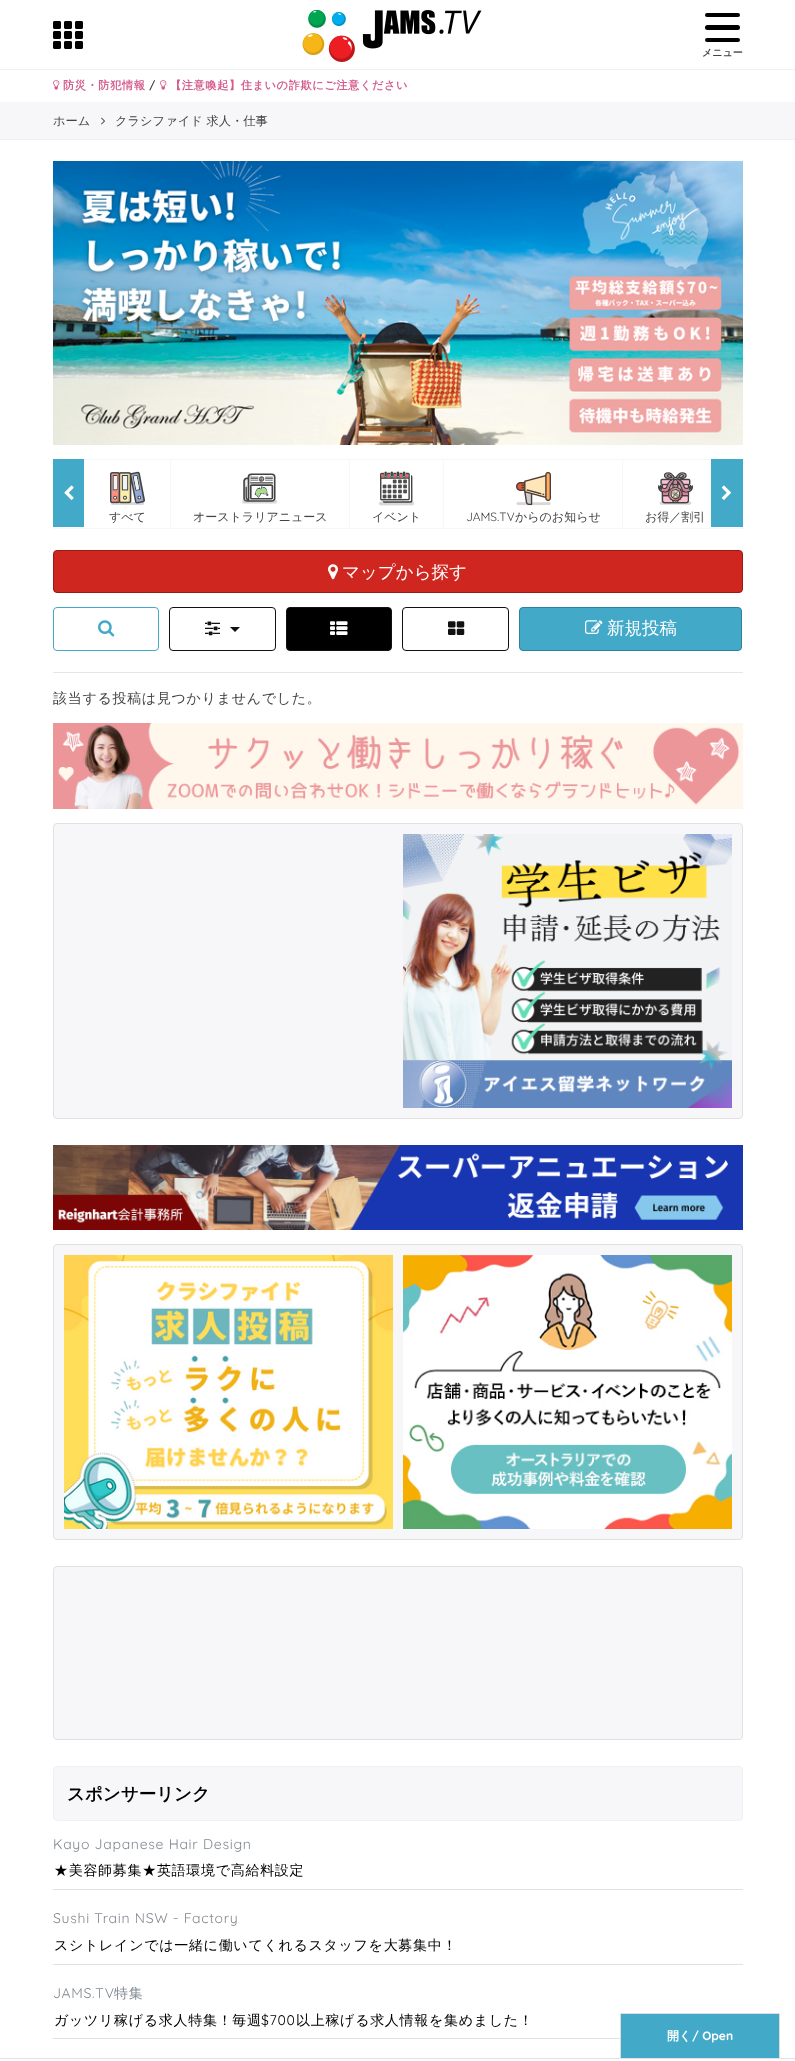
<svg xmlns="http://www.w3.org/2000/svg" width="795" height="2061">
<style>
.a{font:bold 10px WenQuanYi Zen Hei;fill:#434343}
.b{font:bold 11.2px WenQuanYi Zen Hei;letter-spacing:0.6px;fill:#d35c8c}
.c{font:bold 11.2px Quicksand;letter-spacing:0.6px;fill:#434343}
.d{font:500 12.25px WenQuanYi Zen Hei;fill:#434343}
.e{font:500 12px WenQuanYi Zen Hei;fill:#434343}
.f{font:12px Quicksand;fill:#434343}
.g{font:500 17.5px WenQuanYi Zen Hei;fill:#fff}
.h{font:500 14px WenQuanYi Zen Hei;letter-spacing:0.7px;fill:#434343}
.i{font:bold 17.5px WenQuanYi Zen Hei;fill:#000}
.j{font:14px Quicksand;letter-spacing:0.7px;fill:#818a91}
.k{font:500 14px WenQuanYi Zen Hei;letter-spacing:0.7px;fill:#000}
.l{font:500 14px WenQuanYi Zen Hei;letter-spacing:0.7px;fill:#818a91}
.m{font:14px Quicksand;letter-spacing:0.7px;fill:#000}
.n{font:bold 12px WenQuanYi Zen Hei;fill:#fff}
.o{font:bold 12px Quicksand;fill:#fff}
</style>
<rect width="100%" height="100%" fill="#fff"/>
<path fill="#f1f1f5" d="M0 69h795v1H0z"/>
<image href="1.png" x="53" y="21" width="30" height="28"/>
<image href="2.png" x="302" y="10" width="180" height="52"/>
<rect fill="#000" x="705" y="13" width="35" height="4" rx="2"/>
<rect fill="#000" x="705" y="25" width="35" height="5" rx="2.5"/>
<rect fill="#000" x="705" y="38" width="35" height="4" rx="2"/>
<image href="3.png" x="53" y="80" width="7" height="10"/>
<image href="3.png" x="160" y="80" width="7" height="10"/>
<path fill="#f7f7f9" d="M0 102h795v37H0z"/>
<path fill="#f1f1f5" d="M0 139h795v1H0z"/>
<image href="4.png" x="101" y="117" width="4" height="8"/>
<image href="5.png" x="53" y="161" width="690" height="284"/>
<path fill="none" stroke="#f7f7f9" d="M53.5 459.5h689v69H53.5z"/>
<path fill="#43a9c8" d="M53 459h31v68H53z"/>
<image href="6.png" x="64" y="485" width="10" height="15"/>
<path fill="#f7f7f9" d="M170 460h1v68H170z"/>
<image href="7.png" x="110" y="471" width="35" height="34"/>
<path fill="#f7f7f9" d="M349 460h1v68H349z"/>
<image href="8.png" x="242" y="473" width="35" height="31"/>
<path fill="#f7f7f9" d="M443 460h1v68H443z"/>
<image href="9.png" x="379" y="471" width="35" height="35"/>
<path fill="#f7f7f9" d="M622 460h1v68H622z"/>
<image href="10.png" x="516" y="471" width="35" height="35"/>
<image href="11.png" x="658" y="472" width="35" height="33"/>
<path fill="#43a9c8" d="M711 459h32v68H711z"/>
<image href="12.png" x="721" y="485" width="10" height="15"/>
<rect fill="#cf2620" stroke="#961b17" x="53.5" y="550.5" width="689" height="42" rx="3.5"/>
<image href="13.png" x="328" y="564" width="10" height="16"/>
<rect fill="none" stroke="#43a9c8" x="53.5" y="607.5" width="105" height="43" rx="3.5"/>
<image href="14.png" x="98" y="620" width="17" height="17"/>
<rect fill="none" stroke="#111" x="169.5" y="607.5" width="106" height="43" rx="3.5"/>
<image href="15.png" x="205" y="621" width="15" height="15"/>
<path fill="#111" d="M230 627h10l-5 5z"/>
<rect fill="#000" stroke="#111" x="286.5" y="607.5" width="105" height="43" rx="3.5"/>
<image href="16.png" x="330" y="621" width="18" height="14"/>
<rect fill="none" stroke="#111" x="402.5" y="607.5" width="106" height="43" rx="3.5"/>
<image href="17.png" x="448" y="621" width="17" height="14"/>
<rect fill="#43a9c8" stroke="#2d829b" x="519.5" y="607.5" width="222" height="43" rx="3.5"/>
<image href="18.png" x="585" y="620" width="18" height="14"/>
<path fill="#e6e6e6" d="M53 672h690v1H53z"/>
<image href="19.png" x="53" y="723" width="690" height="86"/>
<rect fill="#f7f7f9" stroke="#e1e1e1" x="53.5" y="823.5" width="689" height="295" rx="3.5"/>
<image href="20.png" x="403" y="834" width="329" height="274"/>
<image href="21.png" x="53" y="1145" width="690" height="85"/>
<rect fill="#f7f7f9" stroke="#e1e1e1" x="53.5" y="1244.5" width="689" height="295" rx="3.5"/>
<image href="22.png" x="64" y="1255" width="329" height="274"/>
<image href="23.png" x="403" y="1255" width="329" height="274"/>
<rect fill="#f7f7f9" stroke="#e1e1e1" x="53.5" y="1566.5" width="689" height="173" rx="3.5"/>
<rect fill="#f7f7f9" stroke="#f1f1f5" x="53.5" y="1766.5" width="689" height="54" rx="3.5"/>
<path fill="#e1e1e1" d="M53 1889h690v1H53z"/>
<path fill="#e1e1e1" d="M53 1964h690v1H53z"/>
<path fill="#e1e1e1" d="M53 2038h567v1H53z"/>
<path fill="#e1e1e1" d="M0 2058h795v1H0z"/>
<path fill="#43a9c8" d="M621 2014h158v44H621z"/>
<path fill="#ddd" d="M620 2013h160v1H620z"/>
<path fill="#ddd" d="M779 2013h1v45H779z"/>
<path fill="#ddd" d="M620 2013h1v45H620z"/>
<text class="a" x="702" y="56">メニュー</text>
<text class="b" x="63" y="89">防災・防犯情報</text>
<text class="c" x="149" y="89">/</text>
<text class="b" x="170" y="89">【注意喚起】住まいの詐欺にご注意ください</text>
<text class="d" x="53" y="125">ホーム</text>
<text class="d" x="115" y="125">クラシファイド 求人・仕事</text>
<text class="e" x="109" y="521">すべて</text>
<text class="e" x="193" y="521">オーストラリアニュース</text>
<text class="e" x="372" y="521">イベント</text>
<text class="f" x="466" y="521">JAMS.TV</text>
<text class="e" x="515" y="521">からのお知らせ</text>
<text class="e" x="645" y="521">お得／割引</text>
<text class="g" x="342" y="578">マップから探す</text>
<text class="g" x="607" y="634">新規投稿</text>
<text class="h" x="53" y="703">該当する投稿は見つかりませんでした。</text>
<text class="i" x="67" y="1800">スポンサーリンク</text>
<text class="j" x="53" y="1849">Kayo Japanese Hair Design</text>
<text class="k" x="54" y="1875">★美容師募集★英語環境で高給料設定</text>
<text class="j" x="53" y="1923">Sushi Train NSW - Factory</text>
<text class="k" x="54" y="1950">スシトレインでは一緒に働いてくれるスタッフを大募集中！</text>
<text class="j" x="53" y="1998">JAMS.TV</text>
<text class="l" x="114" y="1998">特集</text>
<text class="k" x="54" y="2025">ガッツリ稼げる求人特集！毎週</text>
<text class="m" x="261" y="2025">$700</text>
<text class="k" x="296" y="2025">以上稼げる求人情報を集めました！</text>
<text class="n" x="667" y="2040">開く</text>
<text class="o" x="692" y="2040">/ Open</text>
</svg>
